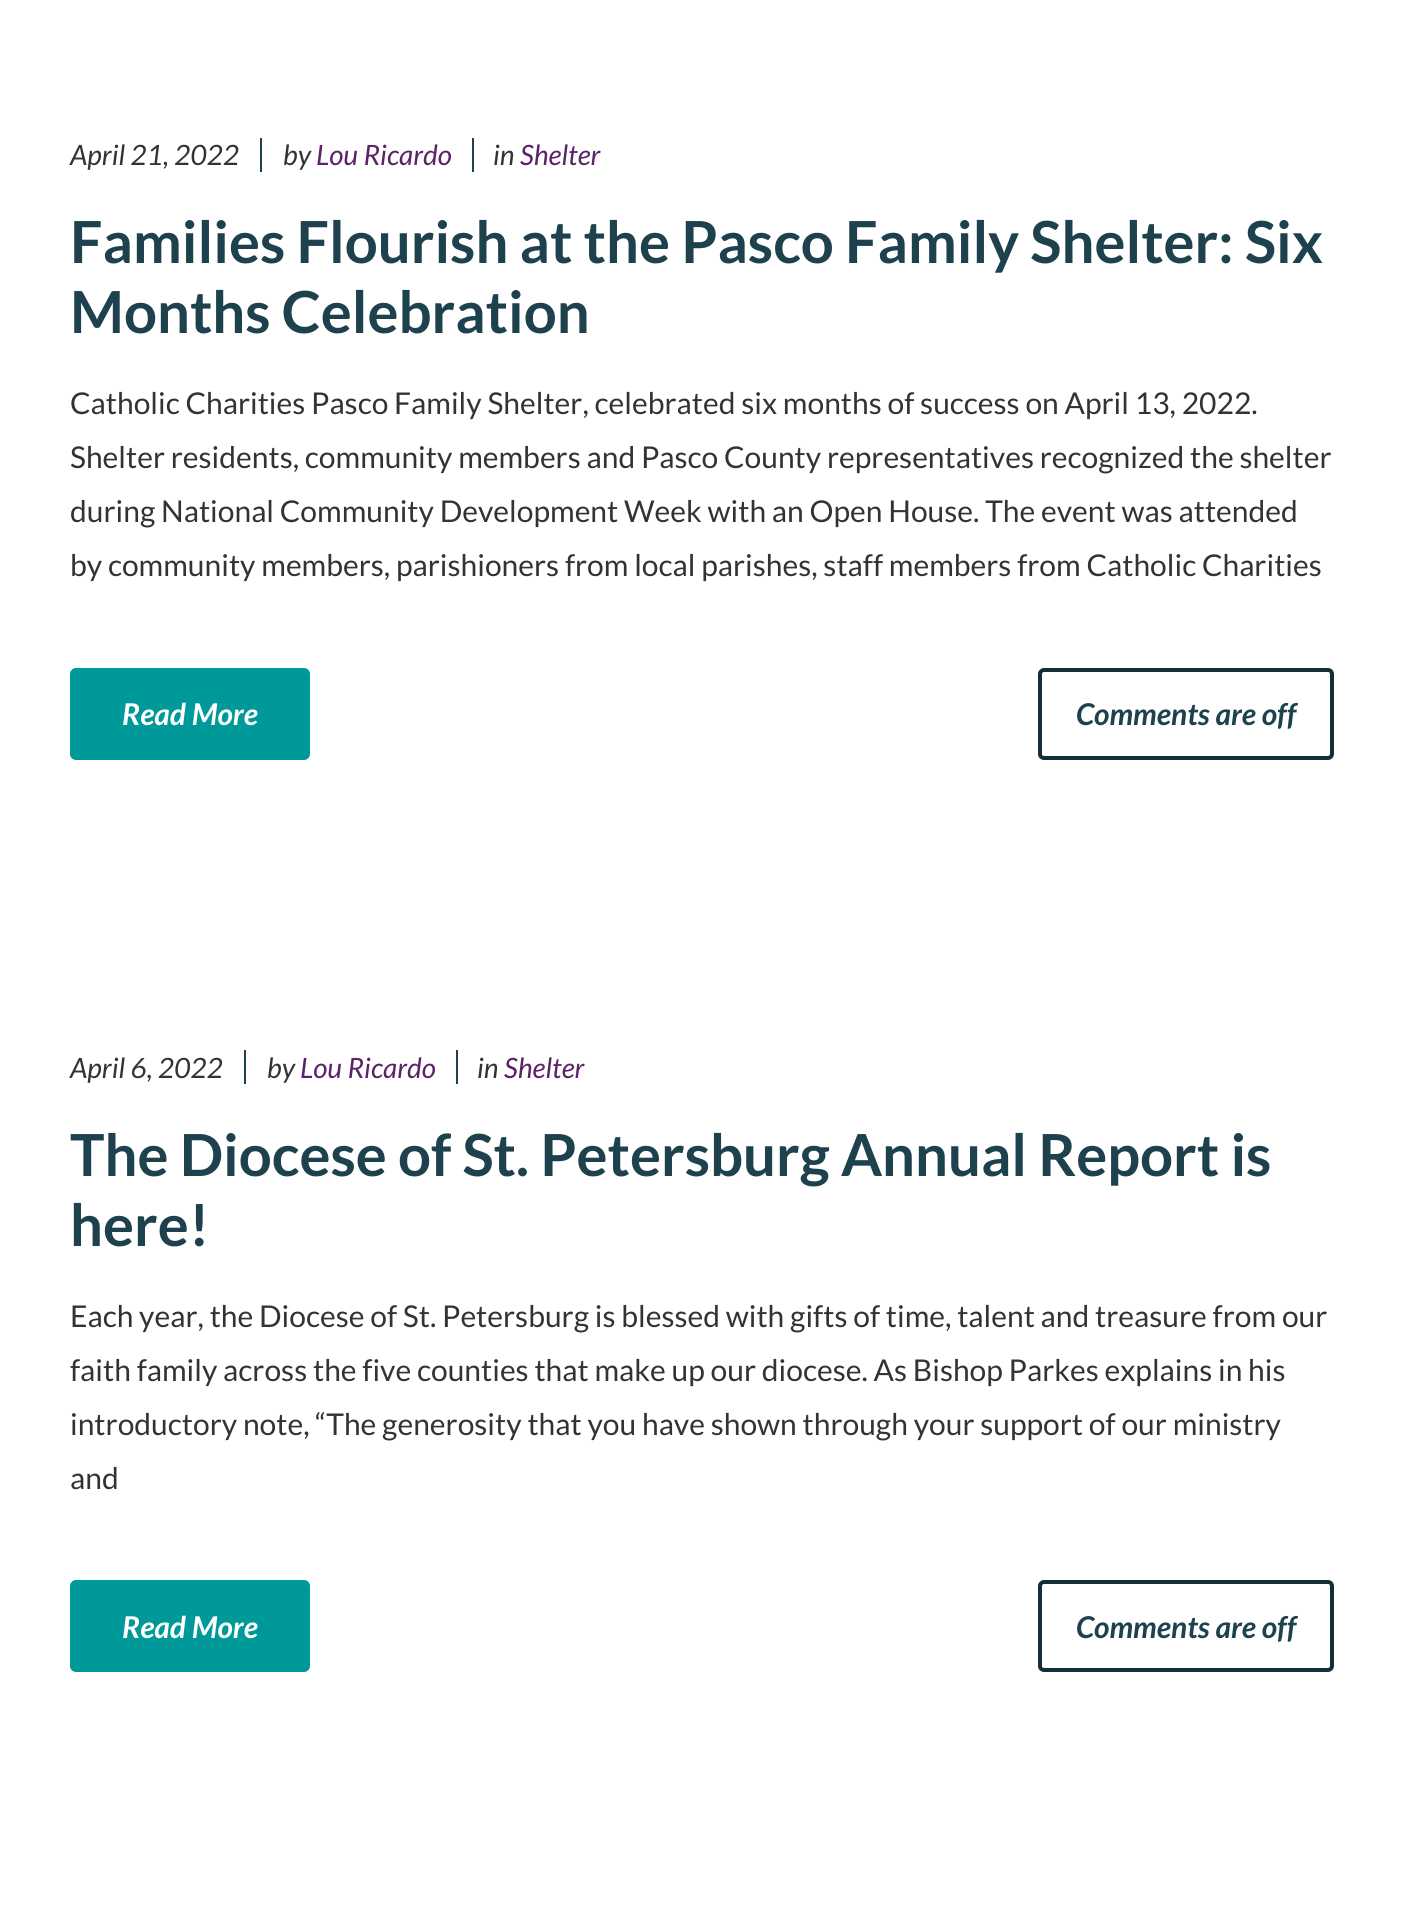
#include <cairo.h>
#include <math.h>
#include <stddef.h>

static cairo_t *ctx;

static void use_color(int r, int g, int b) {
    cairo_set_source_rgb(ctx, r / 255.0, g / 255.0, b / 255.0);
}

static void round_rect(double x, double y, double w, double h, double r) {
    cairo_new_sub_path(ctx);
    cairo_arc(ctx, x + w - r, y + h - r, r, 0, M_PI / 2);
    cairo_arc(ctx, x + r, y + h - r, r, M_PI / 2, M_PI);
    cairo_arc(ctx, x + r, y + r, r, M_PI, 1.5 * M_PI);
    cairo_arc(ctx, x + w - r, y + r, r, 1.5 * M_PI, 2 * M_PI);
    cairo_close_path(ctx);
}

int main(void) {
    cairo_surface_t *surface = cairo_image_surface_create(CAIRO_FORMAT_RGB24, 1403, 1928);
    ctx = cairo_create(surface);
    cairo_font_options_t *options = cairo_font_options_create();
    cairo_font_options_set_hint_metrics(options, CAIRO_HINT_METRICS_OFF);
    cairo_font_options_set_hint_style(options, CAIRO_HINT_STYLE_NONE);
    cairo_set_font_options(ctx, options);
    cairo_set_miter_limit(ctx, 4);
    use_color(255, 255, 255);
    cairo_paint(ctx);
    cairo_select_font_face(ctx, "Lato", CAIRO_FONT_SLANT_ITALIC, CAIRO_FONT_WEIGHT_NORMAL);
    cairo_set_font_size(ctx, 28);
    use_color(51, 51, 51);
    cairo_move_to(ctx, 70, 165);
    cairo_show_text(ctx, "April 21, 2022");
    cairo_move_to(ctx, 283, 165);
    cairo_show_text(ctx, "by");
    use_color(30, 65, 78);
    cairo_rectangle(ctx, 260, 138, 2, 34);
    cairo_fill(ctx);
    use_color(92, 35, 103);
    cairo_move_to(ctx, 316, 165);
    cairo_show_text(ctx, "Lou Ricardo");
    use_color(51, 51, 51);
    cairo_move_to(ctx, 493, 165);
    cairo_show_text(ctx, "in");
    use_color(30, 65, 78);
    cairo_rectangle(ctx, 472, 138, 2, 34);
    cairo_fill(ctx);
    use_color(92, 35, 103);
    cairo_move_to(ctx, 520, 165);
    cairo_show_text(ctx, "Shelter");
    cairo_select_font_face(ctx, "Lato", CAIRO_FONT_SLANT_NORMAL, CAIRO_FONT_WEIGHT_BOLD);
    cairo_set_font_size(ctx, 58);
    use_color(30, 65, 78);
    cairo_move_to(ctx, 70, 263);
    cairo_show_text(ctx, "Families Flourish at the Pasco Family Shelter: Six");
    cairo_move_to(ctx, 70, 333);
    cairo_show_text(ctx, "Months Celebration");
    cairo_select_font_face(ctx, "Lato", CAIRO_FONT_SLANT_NORMAL, CAIRO_FONT_WEIGHT_NORMAL);
    cairo_set_font_size(ctx, 30);
    use_color(51, 51, 51);
    cairo_move_to(ctx, 70, 414);
    cairo_show_text(ctx, "Catholic Charities Pasco Family Shelter, celebrated six months of success on April 13, 2022.");
    cairo_move_to(ctx, 70, 468);
    cairo_show_text(ctx, "Shelter residents, community members and Pasco County representatives recognized the shelter");
    cairo_move_to(ctx, 70, 522);
    cairo_show_text(ctx, "during National Community Development Week with an Open House. The event was attended");
    cairo_move_to(ctx, 70, 576);
    cairo_show_text(ctx, "by community members, parishioners from local parishes, staff members from Catholic Charities");
    use_color(0, 153, 153);
    round_rect(72, 670, 236, 88, 4);
    cairo_fill_preserve(ctx);
    cairo_set_line_width(ctx, 4);
    cairo_stroke(ctx);
    cairo_select_font_face(ctx, "Lato", CAIRO_FONT_SLANT_ITALIC, CAIRO_FONT_WEIGHT_BOLD);
    use_color(255, 255, 255);
    cairo_move_to(ctx, 122, 725);
    cairo_show_text(ctx, "Read More");
    round_rect(1040, 670, 292, 88, 4);
    use_color(20, 46, 57);
    cairo_stroke(ctx);
    use_color(30, 65, 78);
    cairo_move_to(ctx, 1076, 725);
    cairo_show_text(ctx, "Comments are off");
    cairo_select_font_face(ctx, "Lato", CAIRO_FONT_SLANT_ITALIC, CAIRO_FONT_WEIGHT_NORMAL);
    cairo_set_font_size(ctx, 28);
    use_color(51, 51, 51);
    cairo_move_to(ctx, 70, 1078);
    cairo_show_text(ctx, "April 6, 2022");
    cairo_move_to(ctx, 267, 1078);
    cairo_show_text(ctx, "by");
    use_color(30, 65, 78);
    cairo_rectangle(ctx, 244, 1050, 2, 34);
    cairo_fill(ctx);
    use_color(92, 35, 103);
    cairo_move_to(ctx, 300, 1078);
    cairo_show_text(ctx, "Lou Ricardo");
    use_color(51, 51, 51);
    cairo_move_to(ctx, 477, 1078);
    cairo_show_text(ctx, "in");
    use_color(30, 65, 78);
    cairo_rectangle(ctx, 456, 1050, 2, 34);
    cairo_fill(ctx);
    use_color(92, 35, 103);
    cairo_move_to(ctx, 504, 1078);
    cairo_show_text(ctx, "Shelter");
    cairo_select_font_face(ctx, "Lato", CAIRO_FONT_SLANT_NORMAL, CAIRO_FONT_WEIGHT_BOLD);
    cairo_set_font_size(ctx, 58);
    use_color(30, 65, 78);
    cairo_move_to(ctx, 70, 1176);
    cairo_show_text(ctx, "The Diocese of St. Petersburg Annual Report is");
    cairo_move_to(ctx, 70, 1246);
    cairo_show_text(ctx, "here!");
    cairo_select_font_face(ctx, "Lato", CAIRO_FONT_SLANT_NORMAL, CAIRO_FONT_WEIGHT_NORMAL);
    cairo_set_font_size(ctx, 30);
    use_color(51, 51, 51);
    cairo_move_to(ctx, 70, 1327);
    cairo_show_text(ctx, "Each year, the Diocese of St. Petersburg is blessed with gifts of time, talent and treasure from our");
    cairo_move_to(ctx, 70, 1381);
    cairo_show_text(ctx, "faith family across the five counties that make up our diocese. As Bishop Parkes explains in his");
    cairo_move_to(ctx, 70, 1435);
    cairo_show_text(ctx, "introductory note, “The generosity that you have shown through your support of our ministry");
    cairo_move_to(ctx, 70, 1489);
    cairo_show_text(ctx, "and");
    use_color(0, 153, 153);
    round_rect(72, 1582, 236, 88, 4);
    cairo_fill_preserve(ctx);
    cairo_stroke(ctx);
    cairo_select_font_face(ctx, "Lato", CAIRO_FONT_SLANT_ITALIC, CAIRO_FONT_WEIGHT_BOLD);
    use_color(255, 255, 255);
    cairo_move_to(ctx, 122, 1638);
    cairo_show_text(ctx, "Read More");
    round_rect(1040, 1582, 292, 88, 4);
    use_color(20, 46, 57);
    cairo_stroke(ctx);
    use_color(30, 65, 78);
    cairo_move_to(ctx, 1076, 1638);
    cairo_show_text(ctx, "Comments are off");
    cairo_surface_write_to_png(surface, "result.png");
    cairo_font_options_destroy(options);
    cairo_destroy(ctx);
    cairo_surface_destroy(surface);
    return 0;
}
